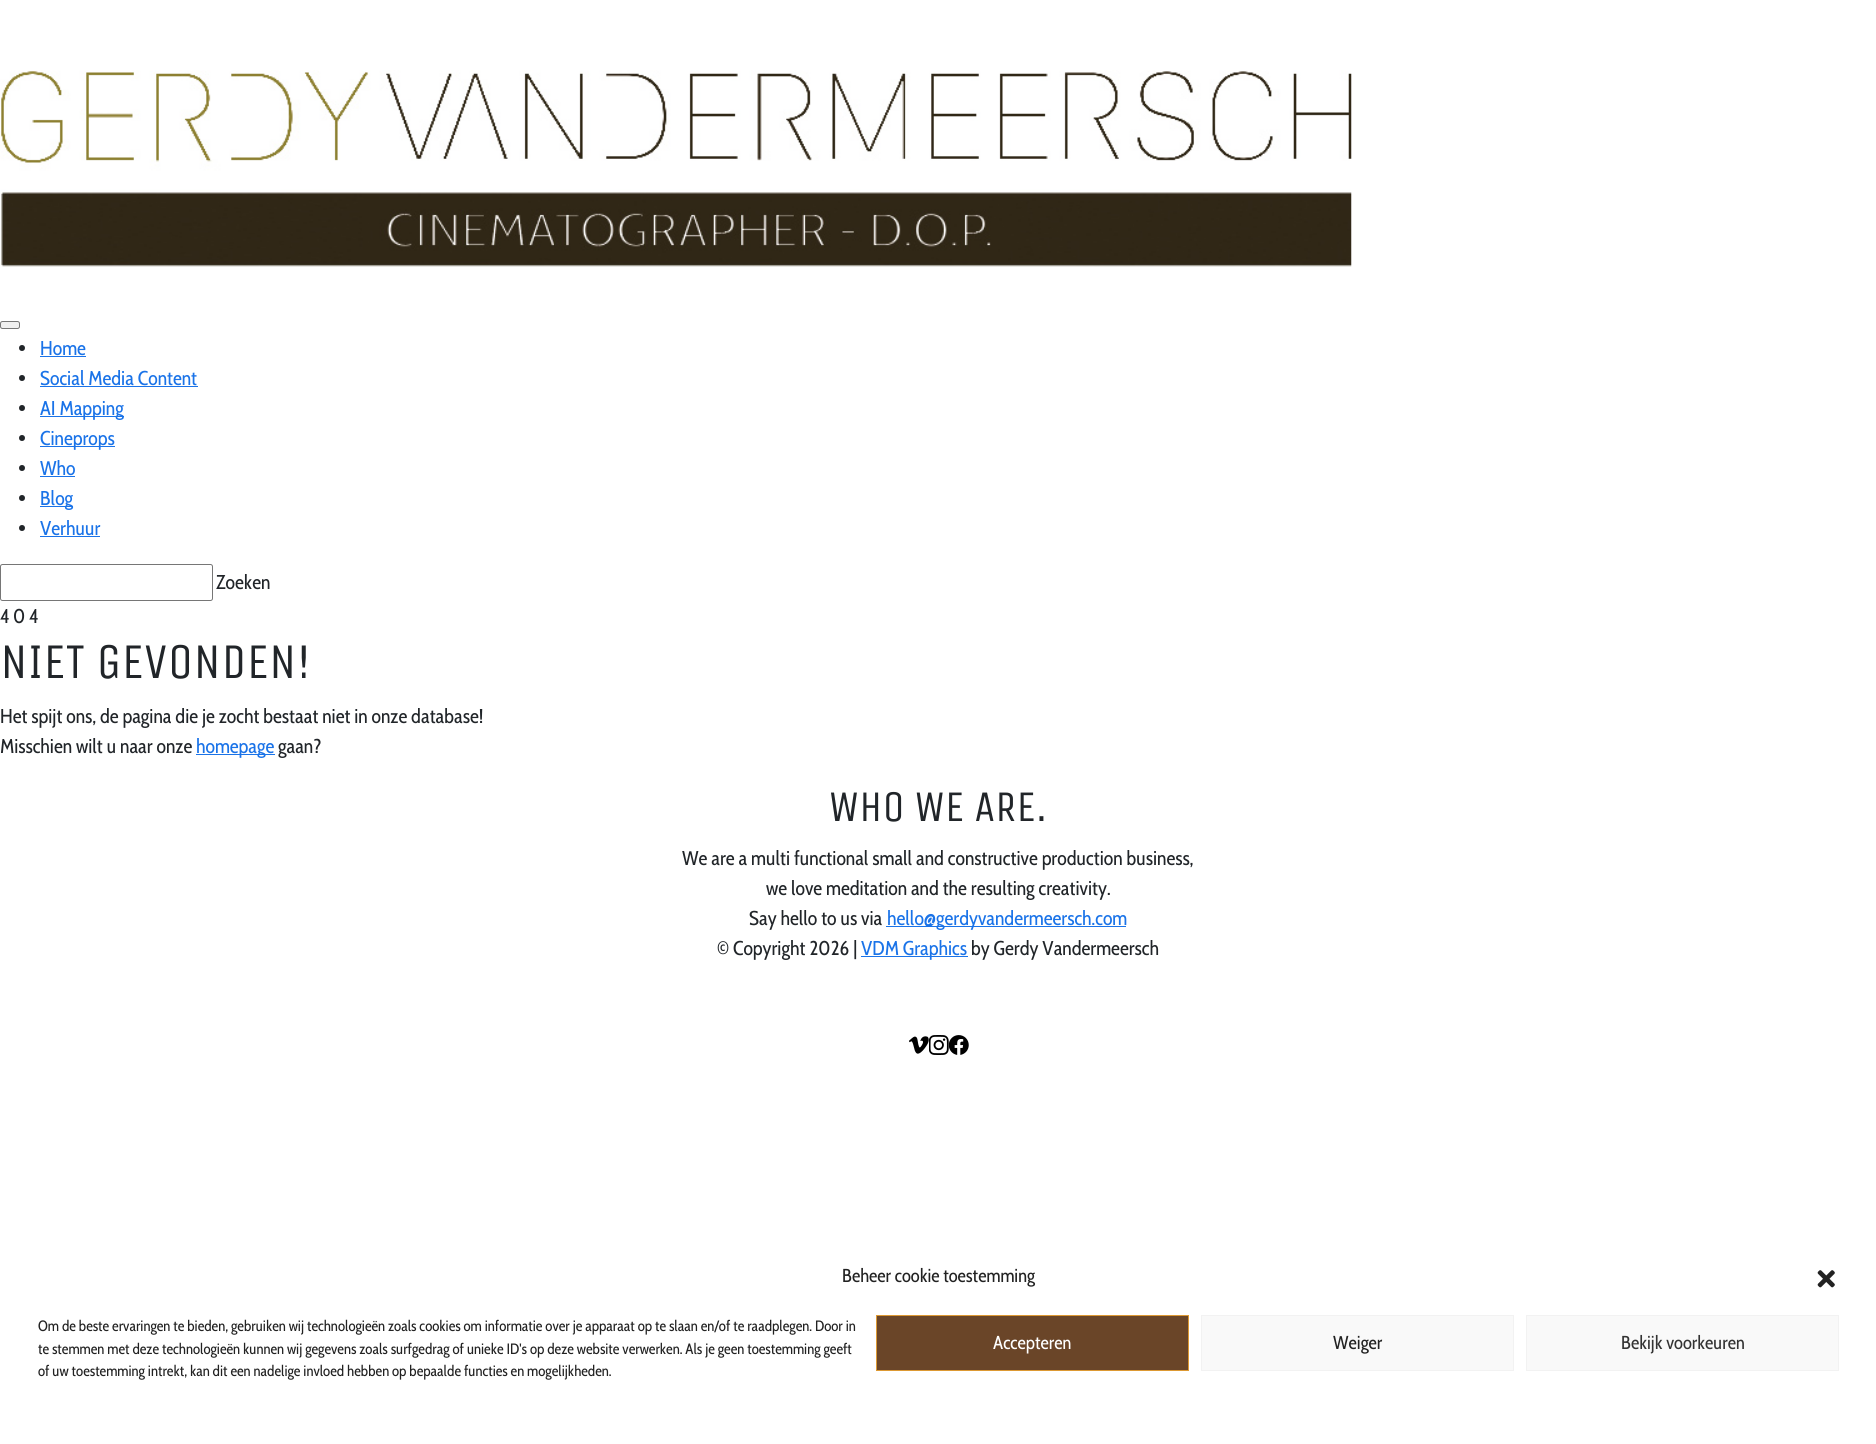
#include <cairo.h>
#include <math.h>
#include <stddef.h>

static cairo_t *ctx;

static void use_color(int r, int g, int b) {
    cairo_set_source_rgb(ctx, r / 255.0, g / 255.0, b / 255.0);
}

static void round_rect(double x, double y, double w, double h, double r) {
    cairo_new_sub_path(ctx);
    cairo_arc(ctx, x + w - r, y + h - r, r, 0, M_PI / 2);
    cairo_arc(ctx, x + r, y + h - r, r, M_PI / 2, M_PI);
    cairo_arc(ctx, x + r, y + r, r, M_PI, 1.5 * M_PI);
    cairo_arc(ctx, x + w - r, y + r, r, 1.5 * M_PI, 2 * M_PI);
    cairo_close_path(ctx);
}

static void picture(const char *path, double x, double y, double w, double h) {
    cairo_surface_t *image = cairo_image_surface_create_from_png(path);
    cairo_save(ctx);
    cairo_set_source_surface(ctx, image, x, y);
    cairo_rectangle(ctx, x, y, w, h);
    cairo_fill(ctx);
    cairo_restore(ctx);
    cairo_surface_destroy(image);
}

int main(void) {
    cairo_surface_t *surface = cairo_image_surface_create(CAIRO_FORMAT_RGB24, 1876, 1444);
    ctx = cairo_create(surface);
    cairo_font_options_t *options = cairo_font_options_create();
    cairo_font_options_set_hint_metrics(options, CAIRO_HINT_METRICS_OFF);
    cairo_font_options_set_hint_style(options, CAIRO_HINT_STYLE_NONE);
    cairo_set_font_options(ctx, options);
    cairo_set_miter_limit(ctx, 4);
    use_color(255, 255, 255);
    cairo_paint(ctx);
    picture("img1.png", 0, 70, 1352, 197);
    use_color(239, 239, 239);
    round_rect(0.5, 321.5, 19, 7, 2);
    cairo_fill_preserve(ctx);
    use_color(118, 118, 118);
    cairo_set_line_width(ctx, 1);
    cairo_stroke(ctx);
    use_color(33, 37, 41);
    cairo_arc(ctx, 22, 348, 3, 0, 2 * M_PI);
    cairo_fill(ctx);
    cairo_select_font_face(ctx, "Cabin Condensed", CAIRO_FONT_SLANT_NORMAL, CAIRO_FONT_WEIGHT_NORMAL);
    cairo_set_font_size(ctx, 20);
    use_color(26, 115, 232);
    cairo_move_to(ctx, 40, 355);
    cairo_show_text(ctx, "Home");
    cairo_rectangle(ctx, 40, 356, 46, 1);
    cairo_fill(ctx);
    use_color(33, 37, 41);
    cairo_arc(ctx, 22, 378, 3, 0, 2 * M_PI);
    cairo_fill(ctx);
    use_color(26, 115, 232);
    cairo_move_to(ctx, 40, 385);
    cairo_show_text(ctx, "Social Media Content");
    cairo_rectangle(ctx, 40, 386, 158, 1);
    cairo_fill(ctx);
    use_color(33, 37, 41);
    cairo_arc(ctx, 22, 408, 3, 0, 2 * M_PI);
    cairo_fill(ctx);
    use_color(26, 115, 232);
    cairo_rectangle(ctx, 40, 416, 84, 1);
    cairo_fill(ctx);
    cairo_move_to(ctx, 40, 415);
    cairo_show_text(ctx, "AI Mapping");
    use_color(33, 37, 41);
    cairo_new_path(ctx);
    cairo_arc(ctx, 22, 438, 3, 0, 2 * M_PI);
    cairo_fill(ctx);
    use_color(26, 115, 232);
    cairo_rectangle(ctx, 40, 446, 75, 1);
    cairo_fill(ctx);
    cairo_move_to(ctx, 40, 445);
    cairo_show_text(ctx, "Cineprops");
    use_color(33, 37, 41);
    cairo_new_path(ctx);
    cairo_arc(ctx, 22, 468, 3, 0, 2 * M_PI);
    cairo_fill(ctx);
    use_color(26, 115, 232);
    cairo_move_to(ctx, 40, 475);
    cairo_show_text(ctx, "Who");
    cairo_rectangle(ctx, 40, 476, 35, 1);
    cairo_fill(ctx);
    use_color(33, 37, 41);
    cairo_arc(ctx, 22, 498, 3, 0, 2 * M_PI);
    cairo_fill(ctx);
    use_color(26, 115, 232);
    cairo_rectangle(ctx, 40, 506, 33, 1);
    cairo_fill(ctx);
    cairo_move_to(ctx, 40, 505);
    cairo_show_text(ctx, "Blog");
    use_color(33, 37, 41);
    cairo_new_path(ctx);
    cairo_arc(ctx, 22, 528, 3, 0, 2 * M_PI);
    cairo_fill(ctx);
    use_color(26, 115, 232);
    cairo_move_to(ctx, 40, 535);
    cairo_show_text(ctx, "Verhuur");
    cairo_rectangle(ctx, 40, 536, 60, 1);
    cairo_fill(ctx);
    round_rect(0.5, 564.5, 212, 36, 2);
    use_color(118, 118, 118);
    cairo_stroke(ctx);
    use_color(33, 37, 41);
    cairo_move_to(ctx, 216, 589);
    cairo_show_text(ctx, "Zoeken");
    cairo_move_to(ctx, 0, 623);
    cairo_show_text(ctx, "4 0 4");
    cairo_select_font_face(ctx, "Unica One", CAIRO_FONT_SLANT_NORMAL, CAIRO_FONT_WEIGHT_NORMAL);
    cairo_set_font_size(ctx, 50);
    cairo_move_to(ctx, 0, 678);
    cairo_show_text(ctx, "NIET GEVONDEN!");
    cairo_select_font_face(ctx, "Cabin Condensed", CAIRO_FONT_SLANT_NORMAL, CAIRO_FONT_WEIGHT_NORMAL);
    cairo_set_font_size(ctx, 20);
    cairo_move_to(ctx, 0, 723);
    cairo_show_text(ctx, "Het spijt ons, de pagina die je zocht bestaat niet in onze database!");
    cairo_move_to(ctx, 0, 753);
    cairo_show_text(ctx, "Misschien wilt u naar onze");
    use_color(26, 115, 232);
    cairo_rectangle(ctx, 196, 754, 79, 1);
    cairo_fill(ctx);
    cairo_move_to(ctx, 196, 753);
    cairo_show_text(ctx, "homepage");
    use_color(33, 37, 41);
    cairo_move_to(ctx, 278, 753);
    cairo_show_text(ctx, "gaan?");
    cairo_select_font_face(ctx, "Unica One", CAIRO_FONT_SLANT_NORMAL, CAIRO_FONT_WEIGHT_NORMAL);
    cairo_set_font_size(ctx, 43.75);
    cairo_move_to(ctx, 829, 821);
    cairo_show_text(ctx, "WHO WE ARE.");
    cairo_select_font_face(ctx, "Cabin Condensed", CAIRO_FONT_SLANT_NORMAL, CAIRO_FONT_WEIGHT_NORMAL);
    cairo_set_font_size(ctx, 20);
    cairo_move_to(ctx, 682, 865);
    cairo_show_text(ctx, "We are a multi functional small and constructive production business,");
    cairo_move_to(ctx, 766, 895);
    cairo_show_text(ctx, "we love meditation and the resulting creativity.");
    cairo_move_to(ctx, 749, 925);
    cairo_show_text(ctx, "Say hello to us via");
    use_color(26, 115, 232);
    cairo_rectangle(ctx, 886, 926, 240, 1);
    cairo_fill(ctx);
    cairo_move_to(ctx, 887, 925);
    cairo_show_text(ctx, "hello@gerdyvandermeersch.com");
    use_color(33, 37, 41);
    cairo_move_to(ctx, 717, 955);
    cairo_show_text(ctx, "© Copyright 2026 |");
    use_color(26, 115, 232);
    cairo_rectangle(ctx, 861, 956, 107, 1);
    cairo_fill(ctx);
    cairo_move_to(ctx, 861, 955);
    cairo_show_text(ctx, "VDM Graphics");
    use_color(33, 37, 41);
    cairo_move_to(ctx, 971, 955);
    cairo_show_text(ctx, "by Gerdy Vandermeersch");
    picture("img2.png", 909, 1036, 20, 18);
    picture("img3.png", 929, 1035, 20, 20);
    picture("img4.png", 949, 1035, 20, 20);
    cairo_set_font_size(ctx, 18.75);
    use_color(34, 34, 34);
    cairo_move_to(ctx, 842, 1282);
    cairo_show_text(ctx, "Beheer cookie toestemming");
    picture("img5.png", 1817, 1270, 18, 18);
    cairo_set_font_size(ctx, 15);
    cairo_move_to(ctx, 38, 1331);
    cairo_show_text(ctx, "Om de beste ervaringen te bieden, gebruiken wij technologieën zoals cookies om informatie over je apparaat op te slaan en/of te raadplegen. Door in");
    cairo_move_to(ctx, 38, 1354);
    cairo_show_text(ctx, "te stemmen met deze technologieën kunnen wij gegevens zoals surfgedrag of unieke ID's op deze website verwerken. Als je geen toestemming geeft");
    cairo_move_to(ctx, 38, 1376);
    cairo_show_text(ctx, "of uw toestemming intrekt, kan dit een nadelige invloed hebben op bepaalde functies en mogelijkheden.");
    use_color(106, 69, 40);
    cairo_rectangle(ctx, 876.5, 1315.5, 312, 55);
    cairo_fill_preserve(ctx);
    use_color(221, 153, 51);
    cairo_stroke(ctx);
    cairo_set_font_size(ctx, 18.75);
    use_color(255, 255, 255);
    cairo_move_to(ctx, 993, 1349);
    cairo_show_text(ctx, "Accepteren");
    use_color(249, 249, 249);
    cairo_rectangle(ctx, 1201.5, 1315.5, 312, 55);
    cairo_fill_preserve(ctx);
    use_color(242, 242, 242);
    cairo_stroke(ctx);
    use_color(34, 34, 34);
    cairo_move_to(ctx, 1333, 1349);
    cairo_show_text(ctx, "Weiger");
    use_color(249, 249, 249);
    cairo_rectangle(ctx, 1526.5, 1315.5, 312, 55);
    cairo_fill_preserve(ctx);
    use_color(242, 242, 242);
    cairo_stroke(ctx);
    use_color(51, 51, 51);
    cairo_move_to(ctx, 1621, 1349);
    cairo_show_text(ctx, "Bekijk voorkeuren");
    cairo_surface_write_to_png(surface, "result.png");
    cairo_font_options_destroy(options);
    cairo_destroy(ctx);
    cairo_surface_destroy(surface);
    return 0;
}
